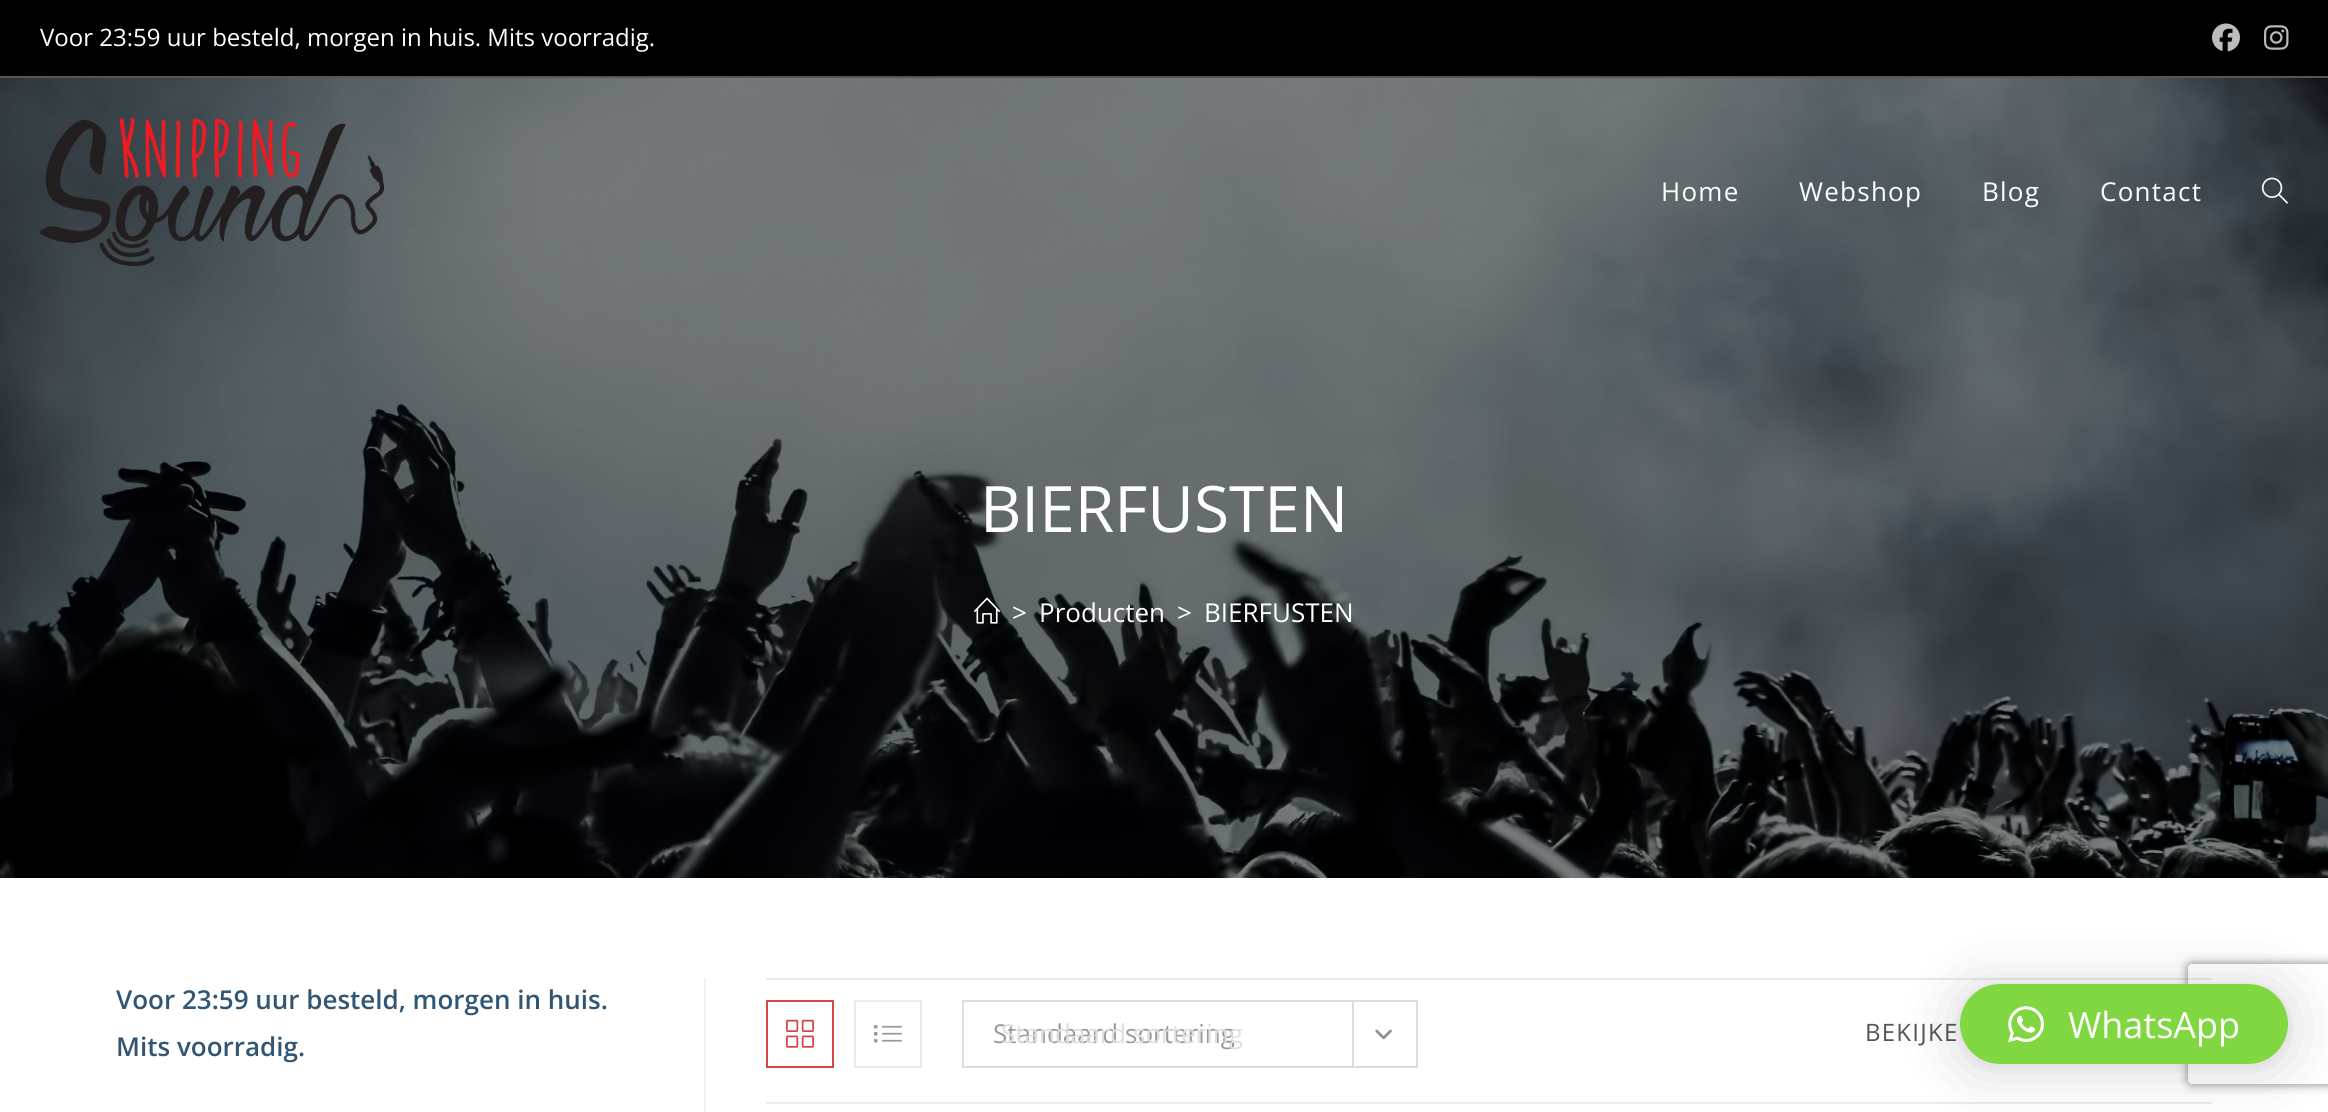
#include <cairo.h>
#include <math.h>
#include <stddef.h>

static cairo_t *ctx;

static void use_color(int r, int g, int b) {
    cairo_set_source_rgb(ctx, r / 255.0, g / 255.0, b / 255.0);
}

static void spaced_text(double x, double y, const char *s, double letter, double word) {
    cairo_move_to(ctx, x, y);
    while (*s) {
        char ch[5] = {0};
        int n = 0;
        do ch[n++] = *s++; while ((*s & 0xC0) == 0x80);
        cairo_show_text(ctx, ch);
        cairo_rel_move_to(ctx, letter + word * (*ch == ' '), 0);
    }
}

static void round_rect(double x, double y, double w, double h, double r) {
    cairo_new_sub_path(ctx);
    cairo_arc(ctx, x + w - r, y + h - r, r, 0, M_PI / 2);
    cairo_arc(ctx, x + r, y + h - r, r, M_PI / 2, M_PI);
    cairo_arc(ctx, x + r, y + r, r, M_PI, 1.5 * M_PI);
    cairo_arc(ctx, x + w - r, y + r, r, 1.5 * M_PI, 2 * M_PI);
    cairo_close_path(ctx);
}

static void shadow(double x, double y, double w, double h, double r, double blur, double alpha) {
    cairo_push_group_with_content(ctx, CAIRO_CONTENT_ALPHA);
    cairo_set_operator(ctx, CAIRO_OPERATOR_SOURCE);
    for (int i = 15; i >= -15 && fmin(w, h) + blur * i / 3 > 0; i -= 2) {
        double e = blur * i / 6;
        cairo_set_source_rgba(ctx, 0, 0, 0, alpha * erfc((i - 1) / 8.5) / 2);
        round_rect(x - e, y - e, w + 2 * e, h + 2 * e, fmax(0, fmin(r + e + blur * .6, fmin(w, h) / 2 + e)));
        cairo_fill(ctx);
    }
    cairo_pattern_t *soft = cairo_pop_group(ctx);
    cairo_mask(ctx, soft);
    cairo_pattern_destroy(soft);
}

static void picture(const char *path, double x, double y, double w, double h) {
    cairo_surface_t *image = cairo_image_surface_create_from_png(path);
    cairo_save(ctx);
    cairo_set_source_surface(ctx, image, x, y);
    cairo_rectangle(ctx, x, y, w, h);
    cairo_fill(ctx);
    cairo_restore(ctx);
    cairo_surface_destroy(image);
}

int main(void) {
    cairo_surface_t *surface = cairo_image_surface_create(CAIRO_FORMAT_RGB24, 2328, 1112);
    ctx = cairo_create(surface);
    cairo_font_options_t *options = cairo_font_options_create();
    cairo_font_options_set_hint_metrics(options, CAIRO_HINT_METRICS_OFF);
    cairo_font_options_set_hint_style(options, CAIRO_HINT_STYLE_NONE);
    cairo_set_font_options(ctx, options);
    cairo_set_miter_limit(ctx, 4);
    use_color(255, 255, 255);
    cairo_paint(ctx);
    use_color(0, 0, 0);
    cairo_rectangle(ctx, 0, 0, 2328, 76);
    cairo_fill(ctx);
    use_color(86, 86, 86);
    cairo_rectangle(ctx, 0, 76, 2328, 2);
    cairo_fill(ctx);
    cairo_select_font_face(ctx, "Open Sans", CAIRO_FONT_SLANT_NORMAL, CAIRO_FONT_WEIGHT_NORMAL);
    cairo_set_font_size(ctx, 24);
    use_color(255, 255, 255);
    cairo_move_to(ctx, 40, 46);
    cairo_show_text(ctx, "Voor 23:59 uur besteld, morgen in huis. Mits voorradig.");
    picture("img1.png", 2212, 23, 28, 29);
    picture("img2.png", 2264, 25, 25, 25);
    picture("img5.png", 0, 78, 2328, 800);
    picture("img3.png", 40, 118, 344, 148);
    cairo_set_font_size(ctx, 26);
    spaced_text(1661, 201, "Home", 1.25, 0);
    spaced_text(1799, 201, "Webshop", 1.25, 0);
    spaced_text(1982, 201, "Blog", 1.25, 0);
    spaced_text(2100, 201, "Contact", 1.25, 0);
    picture("img4.png", 2261, 177, 27, 27);
    cairo_set_font_size(ctx, 64);
    cairo_move_to(ctx, 980, 532);
    cairo_show_text(ctx, "BIERFUSTEN");
    picture("img6.png", 974, 597, 26, 27);
    cairo_set_font_size(ctx, 26);
    cairo_move_to(ctx, 1012, 622);
    cairo_show_text(ctx, ">");
    cairo_move_to(ctx, 1039, 622);
    cairo_show_text(ctx, "Producten");
    cairo_move_to(ctx, 1177, 622);
    cairo_show_text(ctx, ">");
    cairo_move_to(ctx, 1204, 622);
    cairo_show_text(ctx, "BIERFUSTEN");
    cairo_select_font_face(ctx, "Open Sans SemiBold", CAIRO_FONT_SLANT_NORMAL, CAIRO_FONT_WEIGHT_NORMAL);
    use_color(49, 86, 115);
    cairo_move_to(ctx, 116, 1009);
    cairo_show_text(ctx, "Voor 23:59 uur besteld, morgen in huis.");
    cairo_move_to(ctx, 116, 1056);
    cairo_show_text(ctx, "Mits voorradig.");
    use_color(241, 241, 241);
    cairo_rectangle(ctx, 704, 978, 2, 134);
    cairo_fill(ctx);
    use_color(234, 234, 234);
    cairo_rectangle(ctx, 766, 978, 1446, 2);
    cairo_fill(ctx);
    cairo_rectangle(ctx, 766, 1102, 1446, 2);
    cairo_fill(ctx);
    cairo_rectangle(ctx, 767, 1001, 66, 66);
    use_color(214, 68, 68);
    cairo_stroke(ctx);
    picture("img7.png", 786, 1019, 28, 29);
    cairo_rectangle(ctx, 855, 1001, 66, 66);
    use_color(234, 234, 234);
    cairo_stroke(ctx);
    picture("img8.png", 874, 1025, 28, 18);
    cairo_rectangle(ctx, 963, 1001, 454, 66);
    use_color(221, 221, 221);
    cairo_stroke(ctx);
    cairo_select_font_face(ctx, "Open Sans", CAIRO_FONT_SLANT_NORMAL, CAIRO_FONT_WEIGHT_NORMAL);
    use_color(153, 153, 153);
    cairo_move_to(ctx, 993, 1043);
    cairo_show_text(ctx, "Standaard sortering");
    use_color(221, 221, 221);
    cairo_rectangle(ctx, 1352, 1002, 2, 64);
    cairo_fill(ctx);
    picture("img9.png", 1375, 1029, 17, 11);
    use_color(223, 223, 223);
    cairo_move_to(ctx, 1001, 1043);
    cairo_show_text(ctx, "Standaard sortering");
    cairo_set_font_size(ctx, 24);
    use_color(85, 85, 85);
    spaced_text(1865, 1041, "BEKIJKE", 1.25, 0);
    cairo_save(ctx);
    cairo_set_fill_rule(ctx, CAIRO_FILL_RULE_EVEN_ODD);
    cairo_new_path(ctx);
    cairo_move_to(ctx, 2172, 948);
    cairo_line_to(ctx, 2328, 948);
    cairo_line_to(ctx, 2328, 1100);
    cairo_line_to(ctx, 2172, 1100);
    cairo_close_path(ctx);
    cairo_move_to(ctx, 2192, 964);
    cairo_line_to(ctx, 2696, 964);
    cairo_curve_to(ctx, 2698, 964, 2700, 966, 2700, 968);
    cairo_line_to(ctx, 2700, 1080);
    cairo_curve_to(ctx, 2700, 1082, 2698, 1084, 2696, 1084);
    cairo_line_to(ctx, 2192, 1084);
    cairo_curve_to(ctx, 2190, 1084, 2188, 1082, 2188, 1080);
    cairo_line_to(ctx, 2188, 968);
    cairo_curve_to(ctx, 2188, 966, 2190, 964, 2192, 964);
    cairo_close_path(ctx);
    cairo_clip(ctx);
    use_color(128, 128, 128);
    shadow(2188, 964, 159, 120, 4, 5, 1);
    cairo_restore(ctx);
    use_color(0, 0, 0);
    shadow(1960, 988, 328, 80, 40, 32, 0.16);
    shadow(1960, 986, 328, 80, 40, 6, 0.06);
    use_color(129, 215, 66);
    round_rect(1960, 984, 328, 80, 40);
    cairo_fill(ctx);
    picture("img10.png", 2008, 1006, 36, 37);
    cairo_set_font_size(ctx, 36);
    use_color(255, 255, 255);
    cairo_move_to(ctx, 2068, 1038);
    cairo_show_text(ctx, "WhatsApp");
    cairo_surface_write_to_png(surface, "result.png");
    cairo_font_options_destroy(options);
    cairo_destroy(ctx);
    cairo_surface_destroy(surface);
    return 0;
}
